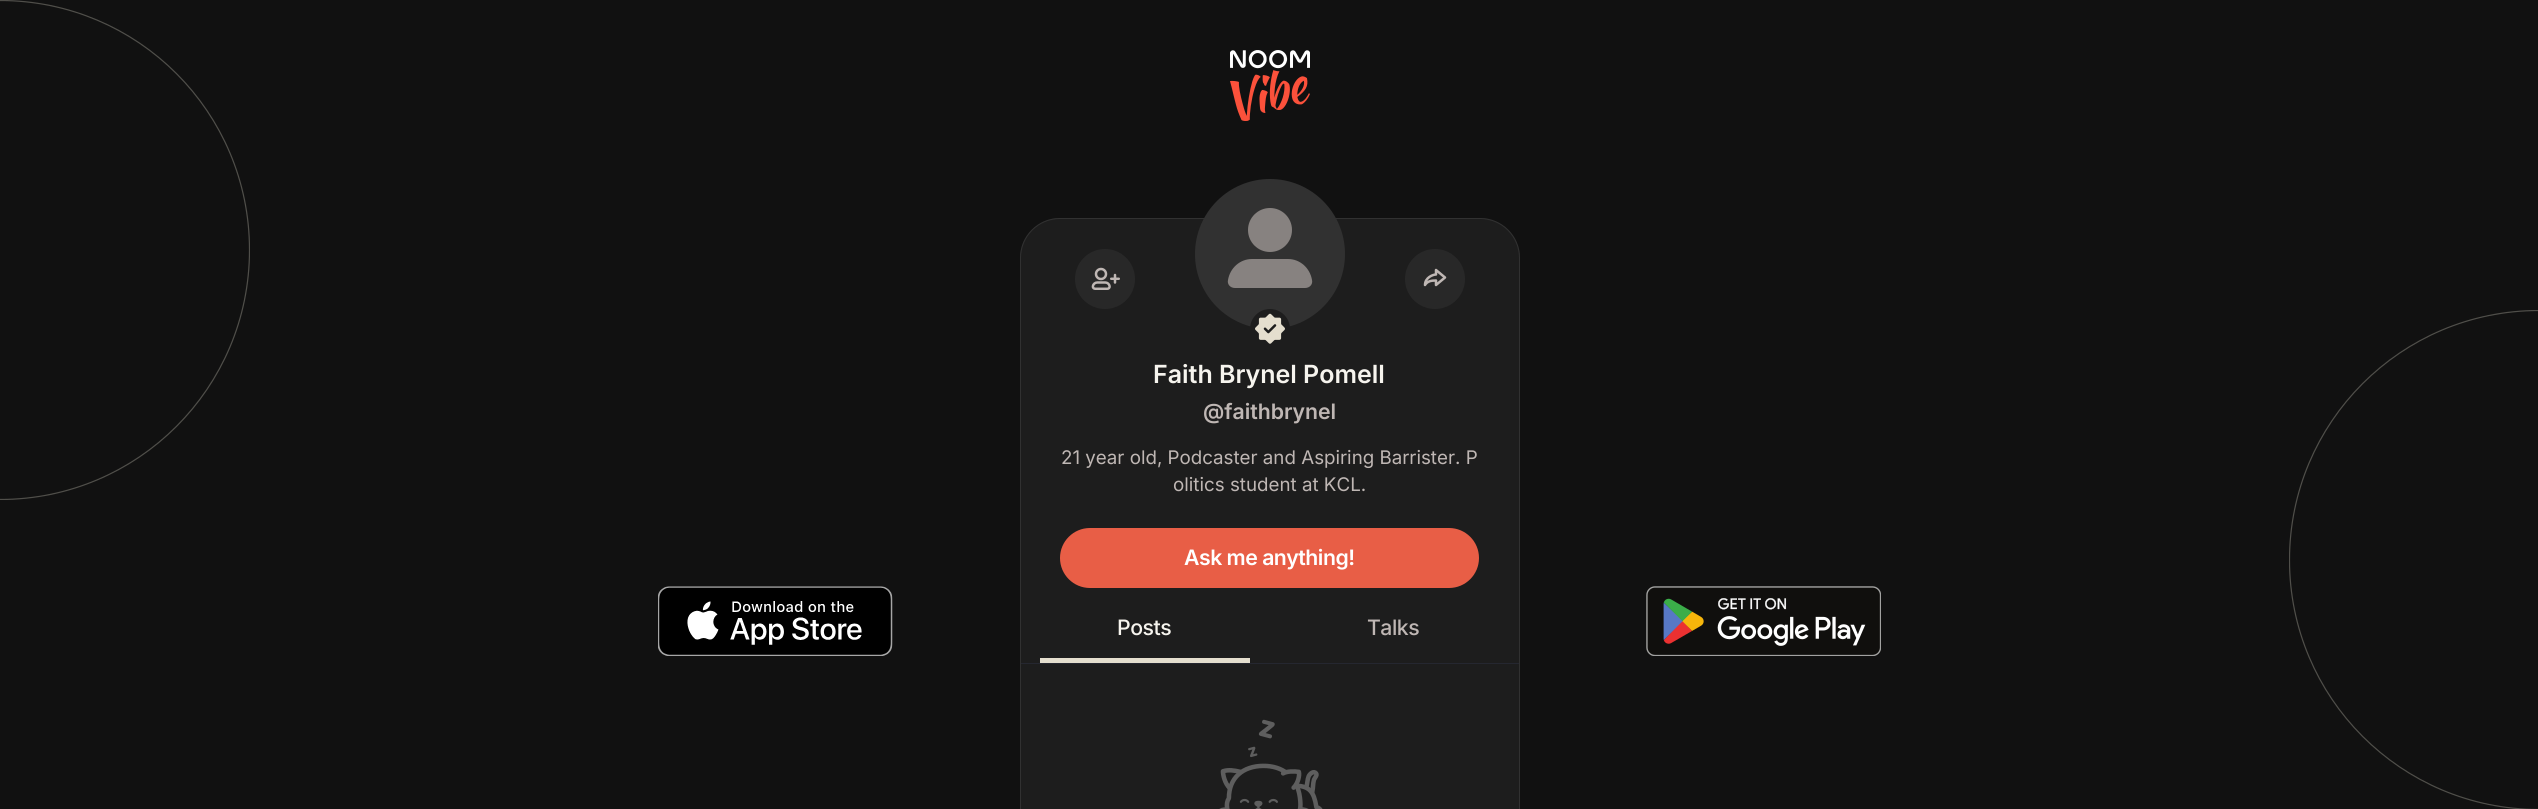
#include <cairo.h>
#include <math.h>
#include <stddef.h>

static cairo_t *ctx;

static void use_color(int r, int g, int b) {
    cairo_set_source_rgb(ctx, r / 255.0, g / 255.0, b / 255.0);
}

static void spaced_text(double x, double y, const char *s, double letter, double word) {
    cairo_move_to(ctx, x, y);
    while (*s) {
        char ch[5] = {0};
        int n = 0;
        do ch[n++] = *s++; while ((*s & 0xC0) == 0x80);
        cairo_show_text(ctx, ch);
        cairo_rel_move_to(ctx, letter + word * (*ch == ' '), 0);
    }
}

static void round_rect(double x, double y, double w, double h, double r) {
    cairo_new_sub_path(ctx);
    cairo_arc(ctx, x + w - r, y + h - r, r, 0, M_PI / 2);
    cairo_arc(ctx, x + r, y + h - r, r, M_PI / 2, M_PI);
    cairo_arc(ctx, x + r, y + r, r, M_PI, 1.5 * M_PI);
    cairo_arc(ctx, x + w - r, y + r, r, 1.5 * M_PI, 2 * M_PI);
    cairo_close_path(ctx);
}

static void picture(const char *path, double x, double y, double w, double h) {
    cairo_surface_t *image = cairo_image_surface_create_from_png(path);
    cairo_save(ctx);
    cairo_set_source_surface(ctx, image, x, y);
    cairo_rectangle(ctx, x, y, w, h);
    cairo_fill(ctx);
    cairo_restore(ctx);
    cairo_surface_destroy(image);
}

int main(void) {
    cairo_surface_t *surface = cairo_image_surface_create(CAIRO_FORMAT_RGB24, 2538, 809);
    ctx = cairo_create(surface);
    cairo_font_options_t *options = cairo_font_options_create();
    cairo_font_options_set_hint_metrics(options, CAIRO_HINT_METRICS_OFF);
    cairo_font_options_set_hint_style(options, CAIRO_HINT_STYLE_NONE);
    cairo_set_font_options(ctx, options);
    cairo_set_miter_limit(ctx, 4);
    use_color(17, 17, 17);
    cairo_paint(ctx);
    cairo_save(ctx);
    cairo_rectangle(ctx, 0, 0, 250, 500);
    cairo_clip(ctx);
    cairo_arc(ctx, 0, 250, 249.5, 0, 2 * M_PI);
    use_color(80, 79, 74);
    cairo_set_line_width(ctx, 1.2);
    cairo_stroke(ctx);
    cairo_restore(ctx);
    picture("img1.png", 1230, 50, 80, 71);
    picture("img2.png", 658, 586, 235, 70);
    use_color(29, 29, 29);
    cairo_new_path(ctx);
    cairo_move_to(ctx, 1060, 218);
    cairo_line_to(ctx, 1480, 218);
    cairo_curve_to(ctx, 1502, 218, 1520, 236, 1520, 258);
    cairo_line_to(ctx, 1520, 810);
    cairo_line_to(ctx, 1020, 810);
    cairo_line_to(ctx, 1020, 258);
    cairo_curve_to(ctx, 1020, 236, 1038, 218, 1060, 218);
    cairo_close_path(ctx);
    cairo_fill(ctx);
    round_rect(1020.5, 218.5, 499, 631, 39.5);
    use_color(49, 49, 49);
    cairo_set_line_width(ctx, 1);
    cairo_stroke(ctx);
    use_color(40, 40, 40);
    cairo_arc(ctx, 1105, 279, 30, 0, 2 * M_PI);
    cairo_fill(ctx);
    picture("img3.png", 1091, 267, 29, 23);
    use_color(49, 49, 49);
    cairo_arc(ctx, 1270, 254, 75, 0, 2 * M_PI);
    cairo_fill(ctx);
    use_color(135, 130, 128);
    cairo_arc(ctx, 1270, 230, 22, 0, 2 * M_PI);
    cairo_fill(ctx);
    cairo_new_path(ctx);
    cairo_move_to(ctx, 1228, 280);
    cairo_curve_to(ctx, 1230, 268, 1240, 259, 1252, 259);
    cairo_line_to(ctx, 1288, 259);
    cairo_curve_to(ctx, 1300, 259, 1310, 268, 1312, 280);
    cairo_curve_to(ctx, 1313, 284, 1310, 288, 1305, 288);
    cairo_line_to(ctx, 1235, 288);
    cairo_curve_to(ctx, 1230, 288, 1227, 284, 1228, 280);
    cairo_close_path(ctx);
    cairo_fill(ctx);
    picture("img4.png", 1250, 309, 40, 40);
    use_color(40, 40, 40);
    cairo_arc(ctx, 1435, 279, 30, 0, 2 * M_PI);
    cairo_fill(ctx);
    cairo_new_path(ctx);
    cairo_move_to(ctx, 1436, 280.5);
    cairo_line_to(ctx, 1436, 285);
    cairo_line_to(ctx, 1445, 277.5);
    cairo_line_to(ctx, 1436, 270);
    cairo_line_to(ctx, 1436, 274.5);
    cairo_curve_to(ctx, 1433, 274.5, 1425, 277.5, 1425, 285);
    cairo_curve_to(ctx, 1427.5, 281, 1431.5, 280.5, 1436, 280.5);
    cairo_close_path(ctx);
    use_color(191, 183, 180);
    cairo_set_line_width(ctx, 2.5);
    cairo_set_line_cap(ctx, CAIRO_LINE_CAP_ROUND);
    cairo_set_line_join(ctx, CAIRO_LINE_JOIN_ROUND);
    cairo_stroke(ctx);
    cairo_select_font_face(ctx, "Inter SemiBold", CAIRO_FONT_SLANT_NORMAL, CAIRO_FONT_WEIGHT_NORMAL);
    cairo_set_font_size(ctx, 25);
    use_color(246, 244, 238);
    cairo_move_to(ctx, 1153, 383);
    cairo_show_text(ctx, "Faith Brynel Pomell");
    cairo_set_font_size(ctx, 21.25);
    use_color(191, 183, 180);
    cairo_move_to(ctx, 1203, 419);
    cairo_show_text(ctx, "@faithbrynel");
    cairo_select_font_face(ctx, "Inter", CAIRO_FONT_SLANT_NORMAL, CAIRO_FONT_WEIGHT_NORMAL);
    cairo_set_font_size(ctx, 18.75);
    cairo_move_to(ctx, 1061, 464);
    cairo_show_text(ctx, "21 year old, Podcaster and Aspiring Barrister. P");
    cairo_move_to(ctx, 1173, 491);
    cairo_show_text(ctx, "olitics student at KCL.");
    use_color(232, 94, 70);
    round_rect(1060, 528, 419, 60, 30);
    cairo_fill(ctx);
    cairo_select_font_face(ctx, "Inter SemiBold", CAIRO_FONT_SLANT_NORMAL, CAIRO_FONT_WEIGHT_NORMAL);
    cairo_set_font_size(ctx, 21.25);
    use_color(255, 255, 255);
    spaced_text(1184, 565, "Ask me anything!", -0.5, 0);
    use_color(37, 39, 48);
    cairo_rectangle(ctx, 1021, 663, 498, 1);
    cairo_fill(ctx);
    use_color(228, 222, 206);
    cairo_rectangle(ctx, 1040, 658, 210, 5);
    cairo_fill(ctx);
    cairo_select_font_face(ctx, "Inter Medium", CAIRO_FONT_SLANT_NORMAL, CAIRO_FONT_WEIGHT_NORMAL);
    use_color(246, 244, 238);
    spaced_text(1117, 635, "Posts", -0.5, 0);
    use_color(191, 183, 180);
    spaced_text(1367, 635, "Talks", -0.5, 0);
    picture("img5.png", 1219, 719, 104, 90);
    picture("img6.png", 1646, 586, 235, 70);
    cairo_save(ctx);
    cairo_rectangle(ctx, 2289, 310, 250, 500);
    cairo_clip(ctx);
    cairo_new_path(ctx);
    cairo_move_to(ctx, 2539, 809.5);
    cairo_curve_to(ctx, 2401, 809.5, 2289.5, 697.5, 2289.5, 560);
    cairo_curve_to(ctx, 2289.5, 422.5, 2401, 310.5, 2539, 310.5);
    cairo_curve_to(ctx, 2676.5, 310.5, 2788, 422.5, 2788, 560);
    cairo_curve_to(ctx, 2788, 697.5, 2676.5, 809.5, 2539, 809.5);
    cairo_close_path(ctx);
    use_color(80, 79, 74);
    cairo_set_line_width(ctx, 1.2);
    cairo_set_line_cap(ctx, CAIRO_LINE_CAP_BUTT);
    cairo_set_line_join(ctx, CAIRO_LINE_JOIN_MITER);
    cairo_stroke(ctx);
    cairo_restore(ctx);
    cairo_surface_write_to_png(surface, "result.png");
    cairo_font_options_destroy(options);
    cairo_destroy(ctx);
    cairo_surface_destroy(surface);
    return 0;
}
